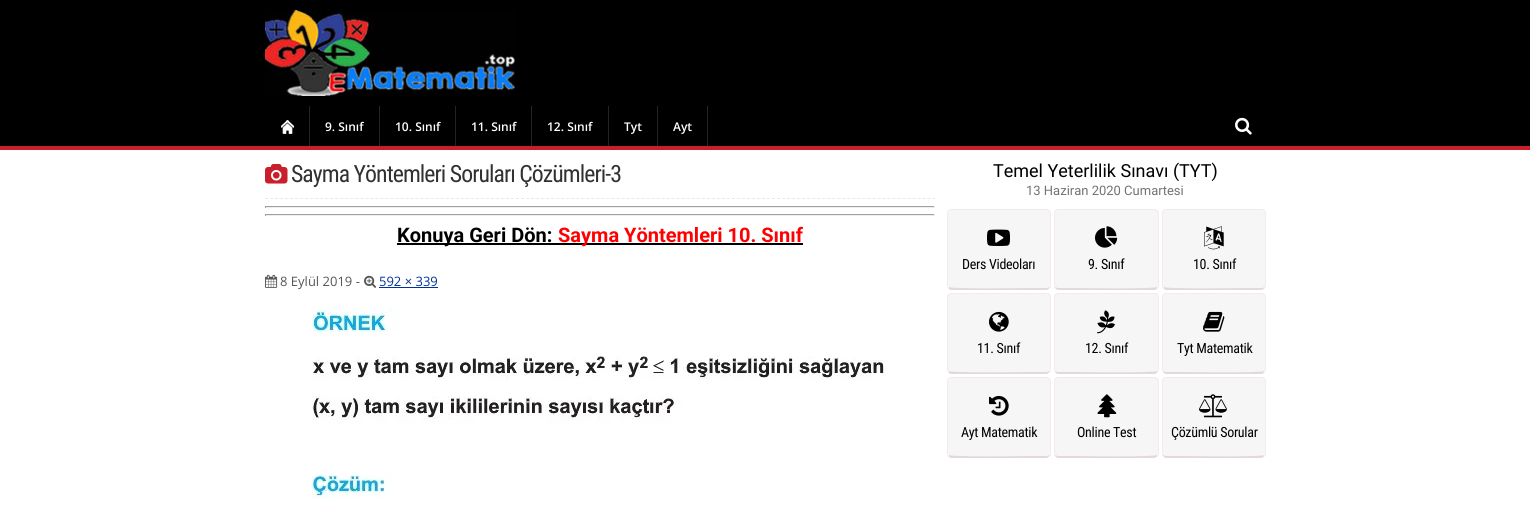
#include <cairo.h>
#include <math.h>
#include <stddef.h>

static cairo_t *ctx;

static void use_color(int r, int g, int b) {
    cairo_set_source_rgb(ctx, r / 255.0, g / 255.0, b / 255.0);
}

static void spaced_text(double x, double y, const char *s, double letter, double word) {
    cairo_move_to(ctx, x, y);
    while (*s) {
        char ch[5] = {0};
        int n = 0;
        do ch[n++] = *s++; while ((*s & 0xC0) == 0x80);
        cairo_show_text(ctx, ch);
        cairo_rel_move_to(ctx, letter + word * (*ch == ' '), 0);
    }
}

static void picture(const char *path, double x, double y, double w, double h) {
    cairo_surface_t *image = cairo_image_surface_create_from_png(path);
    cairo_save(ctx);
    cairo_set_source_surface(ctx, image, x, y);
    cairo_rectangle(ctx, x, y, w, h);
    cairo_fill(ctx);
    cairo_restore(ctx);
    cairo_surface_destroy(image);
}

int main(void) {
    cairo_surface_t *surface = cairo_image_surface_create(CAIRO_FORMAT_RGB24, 1530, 512);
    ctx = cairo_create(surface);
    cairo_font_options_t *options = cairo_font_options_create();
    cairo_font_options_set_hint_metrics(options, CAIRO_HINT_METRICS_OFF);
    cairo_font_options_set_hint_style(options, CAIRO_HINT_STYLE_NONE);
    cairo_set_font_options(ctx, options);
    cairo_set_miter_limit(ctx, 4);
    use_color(255, 255, 255);
    cairo_paint(ctx);
    use_color(0, 0, 0);
    cairo_rectangle(ctx, 0, 0, 1530, 146);
    cairo_fill(ctx);
    picture("img1.png", 265, 10, 250, 86);
    use_color(201, 31, 44);
    cairo_rectangle(ctx, 0, 146, 1530, 4);
    cairo_fill(ctx);
    use_color(35, 35, 35);
    cairo_rectangle(ctx, 309, 106, 1, 40);
    cairo_fill(ctx);
    picture("img2.png", 281, 120, 13, 14);
    cairo_rectangle(ctx, 379, 106, 1, 40);
    cairo_fill(ctx);
    cairo_select_font_face(ctx, "Open Sans SemiBold", CAIRO_FONT_SLANT_NORMAL, CAIRO_FONT_WEIGHT_NORMAL);
    cairo_set_font_size(ctx, 12);
    use_color(255, 255, 255);
    cairo_move_to(ctx, 325, 131);
    cairo_show_text(ctx, "9. Sınıf");
    use_color(35, 35, 35);
    cairo_rectangle(ctx, 455, 106, 1, 40);
    cairo_fill(ctx);
    use_color(255, 255, 255);
    cairo_move_to(ctx, 395, 131);
    cairo_show_text(ctx, "10. Sınıf");
    use_color(35, 35, 35);
    cairo_rectangle(ctx, 531, 106, 1, 40);
    cairo_fill(ctx);
    use_color(255, 255, 255);
    cairo_move_to(ctx, 471, 131);
    cairo_show_text(ctx, "11. Sınıf");
    use_color(35, 35, 35);
    cairo_rectangle(ctx, 608, 106, 1, 40);
    cairo_fill(ctx);
    use_color(255, 255, 255);
    cairo_move_to(ctx, 547, 131);
    cairo_show_text(ctx, "12. Sınıf");
    use_color(35, 35, 35);
    cairo_rectangle(ctx, 657, 106, 1, 40);
    cairo_fill(ctx);
    use_color(255, 255, 255);
    cairo_move_to(ctx, 624, 131);
    cairo_show_text(ctx, "Tyt");
    use_color(35, 35, 35);
    cairo_rectangle(ctx, 707, 106, 1, 40);
    cairo_fill(ctx);
    use_color(255, 255, 255);
    cairo_move_to(ctx, 673, 131);
    cairo_show_text(ctx, "Ayt");
    picture("img3.png", 1235, 117, 17, 18);
    cairo_new_path(ctx);
    cairo_move_to(ctx, 265, 198.5);
    cairo_line_to(ctx, 935, 198.5);
    use_color(234, 231, 231);
    cairo_set_line_width(ctx, 1);
    cairo_set_dash(ctx, (double[]){3, 2.02}, 2, 0);
    cairo_stroke(ctx);
    picture("img4.png", 265, 164, 23, 20);
    cairo_select_font_face(ctx, "Roboto Condensed", CAIRO_FONT_SLANT_NORMAL, CAIRO_FONT_WEIGHT_NORMAL);
    cairo_set_font_size(ctx, 23.75);
    use_color(49, 49, 49);
    spaced_text(291, 182, "Sayma Yöntemleri Soruları Çözümleri-3", -0.95, 0);
    use_color(159, 159, 159);
    cairo_rectangle(ctx, 265, 206, 670, 1);
    cairo_fill(ctx);
    use_color(238, 238, 238);
    cairo_rectangle(ctx, 934, 206, 1, 2);
    cairo_fill(ctx);
    cairo_rectangle(ctx, 265, 207, 670, 1);
    cairo_fill(ctx);
    use_color(159, 159, 159);
    cairo_rectangle(ctx, 265, 206, 1, 2);
    cairo_fill(ctx);
    cairo_rectangle(ctx, 265, 214, 670, 1);
    cairo_fill(ctx);
    use_color(238, 238, 238);
    cairo_rectangle(ctx, 934, 214, 1, 2);
    cairo_fill(ctx);
    cairo_rectangle(ctx, 265, 215, 670, 1);
    cairo_fill(ctx);
    use_color(159, 159, 159);
    cairo_rectangle(ctx, 265, 214, 1, 2);
    cairo_fill(ctx);
    use_color(0, 0, 0);
    cairo_rectangle(ctx, 397, 243, 406, 2);
    cairo_fill(ctx);
    cairo_select_font_face(ctx, "Roboto", CAIRO_FONT_SLANT_NORMAL, CAIRO_FONT_WEIGHT_BOLD);
    cairo_set_font_size(ctx, 20);
    cairo_move_to(ctx, 397, 242);
    cairo_show_text(ctx, "Konuya Geri Dön:");
    use_color(255, 0, 0);
    cairo_move_to(ctx, 558, 242);
    cairo_show_text(ctx, "Sayma Yöntemleri 10. Sınıf");
    picture("img5.png", 265, 274, 13, 14);
    cairo_select_font_face(ctx, "Open Sans", CAIRO_FONT_SLANT_NORMAL, CAIRO_FONT_WEIGHT_NORMAL);
    cairo_set_font_size(ctx, 13);
    use_color(86, 86, 86);
    cairo_move_to(ctx, 280, 286);
    cairo_show_text(ctx, "8 Eylül 2019 -");
    picture("img6.png", 364, 275, 12, 13);
    use_color(0, 51, 153);
    cairo_move_to(ctx, 379, 286);
    cairo_show_text(ctx, "592 × 339");
    cairo_rectangle(ctx, 379, 287, 59, 1);
    cairo_fill(ctx);
    picture("img7.png", 311, 306, 573, 194);
    cairo_select_font_face(ctx, "Roboto", CAIRO_FONT_SLANT_NORMAL, CAIRO_FONT_WEIGHT_NORMAL);
    cairo_set_font_size(ctx, 18);
    use_color(0, 0, 0);
    cairo_move_to(ctx, 993, 177);
    cairo_show_text(ctx, "Temel Yeterlilik Sınavı (TYT)");
    cairo_set_font_size(ctx, 13);
    use_color(119, 113, 113);
    cairo_move_to(ctx, 1026, 195);
    cairo_show_text(ctx, "13 Haziran 2020 Cumartesi");
    use_color(246, 246, 246);
    cairo_new_path(ctx);
    cairo_move_to(ctx, 951, 210);
    cairo_line_to(ctx, 1047, 210);
    cairo_curve_to(ctx, 1049, 210, 1050, 211, 1050, 213);
    cairo_line_to(ctx, 1050, 286);
    cairo_curve_to(ctx, 1050, 287, 1049, 288, 1047, 288);
    cairo_line_to(ctx, 951, 288);
    cairo_curve_to(ctx, 949, 288, 948, 287, 948, 286);
    cairo_line_to(ctx, 948, 213);
    cairo_curve_to(ctx, 948, 211, 949, 210, 951, 210);
    cairo_close_path(ctx);
    cairo_fill(ctx);
    use_color(241, 235, 235);
    cairo_new_path(ctx);
    cairo_move_to(ctx, 951, 209);
    cairo_line_to(ctx, 948, 210);
    cairo_line_to(ctx, 949, 211);
    cairo_line_to(ctx, 951, 210);
    cairo_line_to(ctx, 1047, 210);
    cairo_line_to(ctx, 1049, 211);
    cairo_line_to(ctx, 1050, 210);
    cairo_line_to(ctx, 1047, 209);
    cairo_close_path(ctx);
    cairo_fill(ctx);
    cairo_new_path(ctx);
    cairo_move_to(ctx, 1051, 286);
    cairo_line_to(ctx, 1051, 213);
    cairo_line_to(ctx, 1050, 210);
    cairo_line_to(ctx, 1049, 211);
    cairo_line_to(ctx, 1050, 213);
    cairo_line_to(ctx, 1050, 287);
    cairo_line_to(ctx, 1050, 288);
    cairo_close_path(ctx);
    cairo_fill(ctx);
    use_color(226, 218, 218);
    cairo_new_path(ctx);
    cairo_move_to(ctx, 951, 290);
    cairo_line_to(ctx, 1047, 290);
    cairo_line_to(ctx, 1050, 288);
    cairo_line_to(ctx, 1050, 287);
    cairo_line_to(ctx, 1047, 288);
    cairo_line_to(ctx, 1031, 288);
    cairo_curve_to(ctx, 1022, 288, 951, 289, 949, 287);
    cairo_line_to(ctx, 948, 288);
    cairo_curve_to(ctx, 949, 289, 950, 290, 951, 290);
    cairo_close_path(ctx);
    cairo_fill(ctx);
    use_color(241, 235, 235);
    cairo_new_path(ctx);
    cairo_move_to(ctx, 947, 213);
    cairo_line_to(ctx, 947, 286);
    cairo_line_to(ctx, 948, 288);
    cairo_line_to(ctx, 948, 287);
    cairo_line_to(ctx, 948, 213);
    cairo_line_to(ctx, 949, 211);
    cairo_line_to(ctx, 948, 210);
    cairo_close_path(ctx);
    cairo_fill(ctx);
    picture("img8.png", 987, 229, 23, 17);
    cairo_select_font_face(ctx, "Roboto Condensed", CAIRO_FONT_SLANT_NORMAL, CAIRO_FONT_WEIGHT_NORMAL);
    cairo_set_font_size(ctx, 14);
    use_color(0, 0, 0);
    spaced_text(962, 269, "Ders Videoları", -0.3, 0);
    use_color(246, 246, 246);
    cairo_new_path(ctx);
    cairo_move_to(ctx, 1058, 210);
    cairo_line_to(ctx, 1155, 210);
    cairo_curve_to(ctx, 1157, 210, 1158, 211, 1158, 213);
    cairo_line_to(ctx, 1158, 286);
    cairo_curve_to(ctx, 1158, 287, 1157, 288, 1155, 288);
    cairo_line_to(ctx, 1058, 288);
    cairo_curve_to(ctx, 1056, 288, 1055, 287, 1055, 286);
    cairo_line_to(ctx, 1055, 213);
    cairo_curve_to(ctx, 1055, 211, 1056, 210, 1058, 210);
    cairo_close_path(ctx);
    cairo_fill(ctx);
    use_color(241, 235, 235);
    cairo_new_path(ctx);
    cairo_move_to(ctx, 1058, 209);
    cairo_line_to(ctx, 1055, 210);
    cairo_line_to(ctx, 1056, 211);
    cairo_line_to(ctx, 1058, 210);
    cairo_line_to(ctx, 1155, 210);
    cairo_line_to(ctx, 1157, 211);
    cairo_line_to(ctx, 1158, 210);
    cairo_line_to(ctx, 1155, 209);
    cairo_close_path(ctx);
    cairo_fill(ctx);
    cairo_new_path(ctx);
    cairo_move_to(ctx, 1159, 286);
    cairo_line_to(ctx, 1159, 213);
    cairo_line_to(ctx, 1158, 210);
    cairo_line_to(ctx, 1157, 211);
    cairo_line_to(ctx, 1158, 213);
    cairo_line_to(ctx, 1158, 287);
    cairo_line_to(ctx, 1158, 288);
    cairo_close_path(ctx);
    cairo_fill(ctx);
    use_color(226, 218, 218);
    cairo_new_path(ctx);
    cairo_move_to(ctx, 1058, 290);
    cairo_line_to(ctx, 1155, 290);
    cairo_line_to(ctx, 1158, 288);
    cairo_line_to(ctx, 1157, 287);
    cairo_curve_to(ctx, 1155, 289, 1083, 288, 1074, 288);
    cairo_line_to(ctx, 1058, 288);
    cairo_line_to(ctx, 1055, 287);
    cairo_line_to(ctx, 1055, 288);
    cairo_curve_to(ctx, 1056, 289, 1057, 290, 1058, 290);
    cairo_close_path(ctx);
    cairo_fill(ctx);
    use_color(241, 235, 235);
    cairo_new_path(ctx);
    cairo_move_to(ctx, 1054, 213);
    cairo_line_to(ctx, 1054, 286);
    cairo_line_to(ctx, 1055, 288);
    cairo_line_to(ctx, 1055, 287);
    cairo_line_to(ctx, 1055, 213);
    cairo_line_to(ctx, 1056, 211);
    cairo_line_to(ctx, 1055, 210);
    cairo_close_path(ctx);
    cairo_fill(ctx);
    picture("img9.png", 1095, 226, 23, 22);
    use_color(0, 0, 0);
    spaced_text(1088, 269, "9. Sınıf", -0.3, 0);
    use_color(246, 246, 246);
    cairo_new_path(ctx);
    cairo_move_to(ctx, 1166, 210);
    cairo_line_to(ctx, 1262, 210);
    cairo_curve_to(ctx, 1264, 210, 1265, 211, 1265, 213);
    cairo_line_to(ctx, 1265, 286);
    cairo_curve_to(ctx, 1265, 287, 1264, 288, 1262, 288);
    cairo_line_to(ctx, 1166, 288);
    cairo_curve_to(ctx, 1164, 288, 1163, 287, 1163, 286);
    cairo_line_to(ctx, 1163, 213);
    cairo_curve_to(ctx, 1163, 211, 1164, 210, 1166, 210);
    cairo_close_path(ctx);
    cairo_fill(ctx);
    use_color(241, 235, 235);
    cairo_new_path(ctx);
    cairo_move_to(ctx, 1166, 209);
    cairo_line_to(ctx, 1163, 210);
    cairo_line_to(ctx, 1164, 211);
    cairo_line_to(ctx, 1166, 210);
    cairo_line_to(ctx, 1262, 210);
    cairo_line_to(ctx, 1264, 211);
    cairo_line_to(ctx, 1265, 210);
    cairo_line_to(ctx, 1262, 209);
    cairo_close_path(ctx);
    cairo_fill(ctx);
    cairo_new_path(ctx);
    cairo_move_to(ctx, 1266, 286);
    cairo_line_to(ctx, 1266, 213);
    cairo_line_to(ctx, 1265, 210);
    cairo_line_to(ctx, 1264, 211);
    cairo_line_to(ctx, 1265, 213);
    cairo_line_to(ctx, 1265, 287);
    cairo_line_to(ctx, 1265, 288);
    cairo_close_path(ctx);
    cairo_fill(ctx);
    use_color(226, 218, 218);
    cairo_new_path(ctx);
    cairo_move_to(ctx, 1166, 290);
    cairo_line_to(ctx, 1262, 290);
    cairo_line_to(ctx, 1265, 288);
    cairo_line_to(ctx, 1265, 287);
    cairo_line_to(ctx, 1262, 288);
    cairo_line_to(ctx, 1246, 288);
    cairo_curve_to(ctx, 1237, 288, 1166, 289, 1164, 287);
    cairo_line_to(ctx, 1163, 288);
    cairo_curve_to(ctx, 1164, 289, 1165, 290, 1166, 290);
    cairo_close_path(ctx);
    cairo_fill(ctx);
    use_color(241, 235, 235);
    cairo_new_path(ctx);
    cairo_move_to(ctx, 1162, 213);
    cairo_line_to(ctx, 1162, 286);
    cairo_line_to(ctx, 1163, 288);
    cairo_line_to(ctx, 1163, 287);
    cairo_line_to(ctx, 1163, 213);
    cairo_line_to(ctx, 1164, 211);
    cairo_line_to(ctx, 1163, 210);
    cairo_close_path(ctx);
    cairo_fill(ctx);
    picture("img10.png", 1204, 226, 20, 24);
    use_color(0, 0, 0);
    spaced_text(1193, 269, "10. Sınıf", -0.3, 0);
    use_color(246, 246, 246);
    cairo_new_path(ctx);
    cairo_move_to(ctx, 951, 294);
    cairo_line_to(ctx, 1047, 294);
    cairo_curve_to(ctx, 1049, 294, 1050, 295, 1050, 297);
    cairo_line_to(ctx, 1050, 370);
    cairo_curve_to(ctx, 1050, 371, 1049, 372, 1047, 372);
    cairo_line_to(ctx, 951, 372);
    cairo_curve_to(ctx, 949, 372, 948, 371, 948, 370);
    cairo_line_to(ctx, 948, 297);
    cairo_curve_to(ctx, 948, 295, 949, 294, 951, 294);
    cairo_close_path(ctx);
    cairo_fill(ctx);
    use_color(241, 235, 235);
    cairo_new_path(ctx);
    cairo_move_to(ctx, 951, 293);
    cairo_line_to(ctx, 948, 294);
    cairo_line_to(ctx, 949, 295);
    cairo_line_to(ctx, 951, 294);
    cairo_line_to(ctx, 1047, 294);
    cairo_line_to(ctx, 1049, 295);
    cairo_line_to(ctx, 1050, 294);
    cairo_line_to(ctx, 1047, 293);
    cairo_close_path(ctx);
    cairo_fill(ctx);
    cairo_new_path(ctx);
    cairo_move_to(ctx, 1051, 370);
    cairo_line_to(ctx, 1051, 297);
    cairo_line_to(ctx, 1050, 294);
    cairo_line_to(ctx, 1049, 295);
    cairo_line_to(ctx, 1050, 297);
    cairo_line_to(ctx, 1050, 371);
    cairo_line_to(ctx, 1050, 372);
    cairo_close_path(ctx);
    cairo_fill(ctx);
    use_color(226, 218, 218);
    cairo_new_path(ctx);
    cairo_move_to(ctx, 951, 374);
    cairo_line_to(ctx, 1047, 374);
    cairo_line_to(ctx, 1050, 372);
    cairo_line_to(ctx, 1050, 371);
    cairo_line_to(ctx, 1047, 372);
    cairo_line_to(ctx, 1031, 372);
    cairo_curve_to(ctx, 1022, 372, 951, 373, 949, 371);
    cairo_line_to(ctx, 948, 372);
    cairo_curve_to(ctx, 949, 373, 950, 374, 951, 374);
    cairo_close_path(ctx);
    cairo_fill(ctx);
    use_color(241, 235, 235);
    cairo_new_path(ctx);
    cairo_move_to(ctx, 947, 297);
    cairo_line_to(ctx, 947, 370);
    cairo_line_to(ctx, 948, 372);
    cairo_line_to(ctx, 948, 371);
    cairo_line_to(ctx, 948, 297);
    cairo_line_to(ctx, 949, 295);
    cairo_line_to(ctx, 948, 294);
    cairo_close_path(ctx);
    cairo_fill(ctx);
    picture("img11.png", 989, 311, 20, 21);
    use_color(0, 0, 0);
    spaced_text(977, 353, "11. Sınıf", -0.3, 0);
    use_color(246, 246, 246);
    cairo_new_path(ctx);
    cairo_move_to(ctx, 1058, 294);
    cairo_line_to(ctx, 1155, 294);
    cairo_curve_to(ctx, 1157, 294, 1158, 295, 1158, 297);
    cairo_line_to(ctx, 1158, 370);
    cairo_curve_to(ctx, 1158, 371, 1157, 372, 1155, 372);
    cairo_line_to(ctx, 1058, 372);
    cairo_curve_to(ctx, 1056, 372, 1055, 371, 1055, 370);
    cairo_line_to(ctx, 1055, 297);
    cairo_curve_to(ctx, 1055, 295, 1056, 294, 1058, 294);
    cairo_close_path(ctx);
    cairo_fill(ctx);
    use_color(241, 235, 235);
    cairo_new_path(ctx);
    cairo_move_to(ctx, 1058, 293);
    cairo_line_to(ctx, 1055, 294);
    cairo_line_to(ctx, 1056, 295);
    cairo_line_to(ctx, 1058, 294);
    cairo_line_to(ctx, 1155, 294);
    cairo_line_to(ctx, 1157, 295);
    cairo_line_to(ctx, 1158, 294);
    cairo_line_to(ctx, 1155, 293);
    cairo_close_path(ctx);
    cairo_fill(ctx);
    cairo_new_path(ctx);
    cairo_move_to(ctx, 1159, 370);
    cairo_line_to(ctx, 1159, 297);
    cairo_line_to(ctx, 1158, 294);
    cairo_line_to(ctx, 1157, 295);
    cairo_line_to(ctx, 1158, 297);
    cairo_line_to(ctx, 1158, 371);
    cairo_line_to(ctx, 1158, 372);
    cairo_close_path(ctx);
    cairo_fill(ctx);
    use_color(226, 218, 218);
    cairo_new_path(ctx);
    cairo_move_to(ctx, 1058, 374);
    cairo_line_to(ctx, 1155, 374);
    cairo_line_to(ctx, 1158, 372);
    cairo_line_to(ctx, 1157, 371);
    cairo_curve_to(ctx, 1155, 373, 1083, 372, 1074, 372);
    cairo_line_to(ctx, 1058, 372);
    cairo_line_to(ctx, 1055, 371);
    cairo_line_to(ctx, 1055, 372);
    cairo_curve_to(ctx, 1056, 373, 1057, 374, 1058, 374);
    cairo_close_path(ctx);
    cairo_fill(ctx);
    use_color(241, 235, 235);
    cairo_new_path(ctx);
    cairo_move_to(ctx, 1054, 297);
    cairo_line_to(ctx, 1054, 370);
    cairo_line_to(ctx, 1055, 372);
    cairo_line_to(ctx, 1055, 371);
    cairo_line_to(ctx, 1055, 297);
    cairo_line_to(ctx, 1056, 295);
    cairo_line_to(ctx, 1055, 294);
    cairo_close_path(ctx);
    cairo_fill(ctx);
    picture("img12.png", 1097, 310, 18, 24);
    use_color(0, 0, 0);
    spaced_text(1085, 353, "12. Sınıf", -0.3, 0);
    use_color(246, 246, 246);
    cairo_new_path(ctx);
    cairo_move_to(ctx, 1166, 294);
    cairo_line_to(ctx, 1262, 294);
    cairo_curve_to(ctx, 1264, 294, 1265, 295, 1265, 297);
    cairo_line_to(ctx, 1265, 370);
    cairo_curve_to(ctx, 1265, 371, 1264, 372, 1262, 372);
    cairo_line_to(ctx, 1166, 372);
    cairo_curve_to(ctx, 1164, 372, 1163, 371, 1163, 370);
    cairo_line_to(ctx, 1163, 297);
    cairo_curve_to(ctx, 1163, 295, 1164, 294, 1166, 294);
    cairo_close_path(ctx);
    cairo_fill(ctx);
    use_color(241, 235, 235);
    cairo_new_path(ctx);
    cairo_move_to(ctx, 1166, 293);
    cairo_line_to(ctx, 1163, 294);
    cairo_line_to(ctx, 1164, 295);
    cairo_line_to(ctx, 1166, 294);
    cairo_line_to(ctx, 1262, 294);
    cairo_line_to(ctx, 1264, 295);
    cairo_line_to(ctx, 1265, 294);
    cairo_line_to(ctx, 1262, 293);
    cairo_close_path(ctx);
    cairo_fill(ctx);
    cairo_new_path(ctx);
    cairo_move_to(ctx, 1266, 370);
    cairo_line_to(ctx, 1266, 297);
    cairo_line_to(ctx, 1265, 294);
    cairo_line_to(ctx, 1264, 295);
    cairo_line_to(ctx, 1265, 297);
    cairo_line_to(ctx, 1265, 371);
    cairo_line_to(ctx, 1265, 372);
    cairo_close_path(ctx);
    cairo_fill(ctx);
    use_color(226, 218, 218);
    cairo_new_path(ctx);
    cairo_move_to(ctx, 1166, 374);
    cairo_line_to(ctx, 1262, 374);
    cairo_line_to(ctx, 1265, 372);
    cairo_line_to(ctx, 1264, 371);
    cairo_curve_to(ctx, 1262, 373, 1191, 372, 1182, 372);
    cairo_line_to(ctx, 1166, 372);
    cairo_line_to(ctx, 1163, 371);
    cairo_line_to(ctx, 1163, 372);
    cairo_curve_to(ctx, 1164, 373, 1165, 374, 1166, 374);
    cairo_close_path(ctx);
    cairo_fill(ctx);
    use_color(241, 235, 235);
    cairo_new_path(ctx);
    cairo_move_to(ctx, 1162, 297);
    cairo_line_to(ctx, 1162, 370);
    cairo_line_to(ctx, 1163, 372);
    cairo_line_to(ctx, 1163, 371);
    cairo_line_to(ctx, 1163, 297);
    cairo_line_to(ctx, 1164, 295);
    cairo_line_to(ctx, 1163, 294);
    cairo_close_path(ctx);
    cairo_fill(ctx);
    picture("img13.png", 1203, 311, 22, 21);
    use_color(0, 0, 0);
    spaced_text(1177, 353, "Tyt Matematik", -0.3, 0);
    use_color(246, 246, 246);
    cairo_new_path(ctx);
    cairo_move_to(ctx, 951, 378);
    cairo_line_to(ctx, 1047, 378);
    cairo_curve_to(ctx, 1049, 378, 1050, 379, 1050, 381);
    cairo_line_to(ctx, 1050, 454);
    cairo_curve_to(ctx, 1050, 455, 1049, 456, 1047, 456);
    cairo_line_to(ctx, 951, 456);
    cairo_curve_to(ctx, 949, 456, 948, 455, 948, 454);
    cairo_line_to(ctx, 948, 381);
    cairo_curve_to(ctx, 948, 379, 949, 378, 951, 378);
    cairo_close_path(ctx);
    cairo_fill(ctx);
    use_color(241, 235, 235);
    cairo_new_path(ctx);
    cairo_move_to(ctx, 951, 377);
    cairo_line_to(ctx, 948, 378);
    cairo_line_to(ctx, 949, 379);
    cairo_line_to(ctx, 951, 378);
    cairo_line_to(ctx, 1047, 378);
    cairo_line_to(ctx, 1049, 379);
    cairo_line_to(ctx, 1050, 378);
    cairo_line_to(ctx, 1047, 377);
    cairo_close_path(ctx);
    cairo_fill(ctx);
    cairo_new_path(ctx);
    cairo_move_to(ctx, 1051, 454);
    cairo_line_to(ctx, 1051, 381);
    cairo_line_to(ctx, 1050, 378);
    cairo_line_to(ctx, 1049, 379);
    cairo_line_to(ctx, 1050, 381);
    cairo_line_to(ctx, 1050, 455);
    cairo_line_to(ctx, 1050, 456);
    cairo_close_path(ctx);
    cairo_fill(ctx);
    use_color(226, 218, 218);
    cairo_new_path(ctx);
    cairo_move_to(ctx, 951, 458);
    cairo_line_to(ctx, 1047, 458);
    cairo_line_to(ctx, 1050, 456);
    cairo_line_to(ctx, 1050, 455);
    cairo_line_to(ctx, 1047, 456);
    cairo_line_to(ctx, 1031, 456);
    cairo_curve_to(ctx, 1022, 456, 951, 457, 949, 455);
    cairo_line_to(ctx, 948, 456);
    cairo_curve_to(ctx, 949, 457, 950, 458, 951, 458);
    cairo_close_path(ctx);
    cairo_fill(ctx);
    use_color(241, 235, 235);
    cairo_new_path(ctx);
    cairo_move_to(ctx, 947, 381);
    cairo_line_to(ctx, 947, 454);
    cairo_line_to(ctx, 948, 456);
    cairo_line_to(ctx, 948, 455);
    cairo_line_to(ctx, 948, 381);
    cairo_line_to(ctx, 949, 379);
    cairo_line_to(ctx, 948, 378);
    cairo_close_path(ctx);
    cairo_fill(ctx);
    picture("img14.png", 989, 395, 20, 21);
    use_color(0, 0, 0);
    spaced_text(961, 437, "Ayt Matematik", -0.3, 0);
    use_color(246, 246, 246);
    cairo_new_path(ctx);
    cairo_move_to(ctx, 1058, 378);
    cairo_line_to(ctx, 1155, 378);
    cairo_curve_to(ctx, 1157, 378, 1158, 379, 1158, 381);
    cairo_line_to(ctx, 1158, 454);
    cairo_curve_to(ctx, 1158, 455, 1157, 456, 1155, 456);
    cairo_line_to(ctx, 1058, 456);
    cairo_curve_to(ctx, 1056, 456, 1055, 455, 1055, 454);
    cairo_line_to(ctx, 1055, 381);
    cairo_curve_to(ctx, 1055, 379, 1056, 378, 1058, 378);
    cairo_close_path(ctx);
    cairo_fill(ctx);
    use_color(241, 235, 235);
    cairo_new_path(ctx);
    cairo_move_to(ctx, 1058, 377);
    cairo_line_to(ctx, 1055, 378);
    cairo_line_to(ctx, 1056, 379);
    cairo_line_to(ctx, 1058, 378);
    cairo_line_to(ctx, 1155, 378);
    cairo_line_to(ctx, 1157, 379);
    cairo_line_to(ctx, 1158, 378);
    cairo_line_to(ctx, 1155, 377);
    cairo_close_path(ctx);
    cairo_fill(ctx);
    cairo_new_path(ctx);
    cairo_move_to(ctx, 1159, 454);
    cairo_line_to(ctx, 1159, 381);
    cairo_line_to(ctx, 1158, 378);
    cairo_line_to(ctx, 1157, 379);
    cairo_line_to(ctx, 1158, 381);
    cairo_line_to(ctx, 1158, 455);
    cairo_line_to(ctx, 1158, 456);
    cairo_close_path(ctx);
    cairo_fill(ctx);
    use_color(226, 218, 218);
    cairo_new_path(ctx);
    cairo_move_to(ctx, 1058, 458);
    cairo_line_to(ctx, 1155, 458);
    cairo_line_to(ctx, 1158, 456);
    cairo_line_to(ctx, 1157, 455);
    cairo_curve_to(ctx, 1155, 457, 1083, 456, 1074, 456);
    cairo_line_to(ctx, 1058, 456);
    cairo_line_to(ctx, 1055, 455);
    cairo_line_to(ctx, 1055, 456);
    cairo_curve_to(ctx, 1056, 457, 1057, 458, 1058, 458);
    cairo_close_path(ctx);
    cairo_fill(ctx);
    use_color(241, 235, 235);
    cairo_new_path(ctx);
    cairo_move_to(ctx, 1054, 381);
    cairo_line_to(ctx, 1054, 454);
    cairo_line_to(ctx, 1055, 456);
    cairo_line_to(ctx, 1055, 455);
    cairo_line_to(ctx, 1055, 381);
    cairo_line_to(ctx, 1056, 379);
    cairo_line_to(ctx, 1055, 378);
    cairo_close_path(ctx);
    cairo_fill(ctx);
    picture("img15.png", 1097, 394, 20, 24);
    use_color(0, 0, 0);
    spaced_text(1077, 437, "Online Test", -0.3, 0);
    use_color(246, 246, 246);
    cairo_new_path(ctx);
    cairo_move_to(ctx, 1166, 378);
    cairo_line_to(ctx, 1262, 378);
    cairo_curve_to(ctx, 1264, 378, 1265, 379, 1265, 381);
    cairo_line_to(ctx, 1265, 454);
    cairo_curve_to(ctx, 1265, 455, 1264, 456, 1262, 456);
    cairo_line_to(ctx, 1166, 456);
    cairo_curve_to(ctx, 1164, 456, 1163, 455, 1163, 454);
    cairo_line_to(ctx, 1163, 381);
    cairo_curve_to(ctx, 1163, 379, 1164, 378, 1166, 378);
    cairo_close_path(ctx);
    cairo_fill(ctx);
    use_color(241, 235, 235);
    cairo_new_path(ctx);
    cairo_move_to(ctx, 1166, 377);
    cairo_line_to(ctx, 1163, 378);
    cairo_line_to(ctx, 1164, 379);
    cairo_line_to(ctx, 1166, 378);
    cairo_line_to(ctx, 1262, 378);
    cairo_line_to(ctx, 1264, 379);
    cairo_line_to(ctx, 1265, 378);
    cairo_line_to(ctx, 1262, 377);
    cairo_close_path(ctx);
    cairo_fill(ctx);
    cairo_new_path(ctx);
    cairo_move_to(ctx, 1266, 454);
    cairo_line_to(ctx, 1266, 381);
    cairo_line_to(ctx, 1265, 378);
    cairo_line_to(ctx, 1264, 379);
    cairo_line_to(ctx, 1265, 381);
    cairo_line_to(ctx, 1265, 455);
    cairo_line_to(ctx, 1265, 456);
    cairo_close_path(ctx);
    cairo_fill(ctx);
    use_color(226, 218, 218);
    cairo_new_path(ctx);
    cairo_move_to(ctx, 1166, 458);
    cairo_line_to(ctx, 1262, 458);
    cairo_line_to(ctx, 1265, 456);
    cairo_line_to(ctx, 1264, 455);
    cairo_curve_to(ctx, 1262, 457, 1191, 456, 1182, 456);
    cairo_line_to(ctx, 1166, 456);
    cairo_line_to(ctx, 1163, 455);
    cairo_line_to(ctx, 1163, 456);
    cairo_curve_to(ctx, 1164, 457, 1165, 458, 1166, 458);
    cairo_close_path(ctx);
    cairo_fill(ctx);
    use_color(241, 235, 235);
    cairo_new_path(ctx);
    cairo_move_to(ctx, 1162, 381);
    cairo_line_to(ctx, 1162, 454);
    cairo_line_to(ctx, 1163, 456);
    cairo_line_to(ctx, 1163, 455);
    cairo_line_to(ctx, 1163, 381);
    cairo_line_to(ctx, 1164, 379);
    cairo_line_to(ctx, 1163, 378);
    cairo_close_path(ctx);
    cairo_fill(ctx);
    picture("img16.png", 1199, 394, 28, 24);
    use_color(0, 0, 0);
    spaced_text(1171, 437, "Çözümlü Sorular", -0.3, 0);
    cairo_surface_write_to_png(surface, "result.png");
    cairo_font_options_destroy(options);
    cairo_destroy(ctx);
    cairo_surface_destroy(surface);
    return 0;
}
